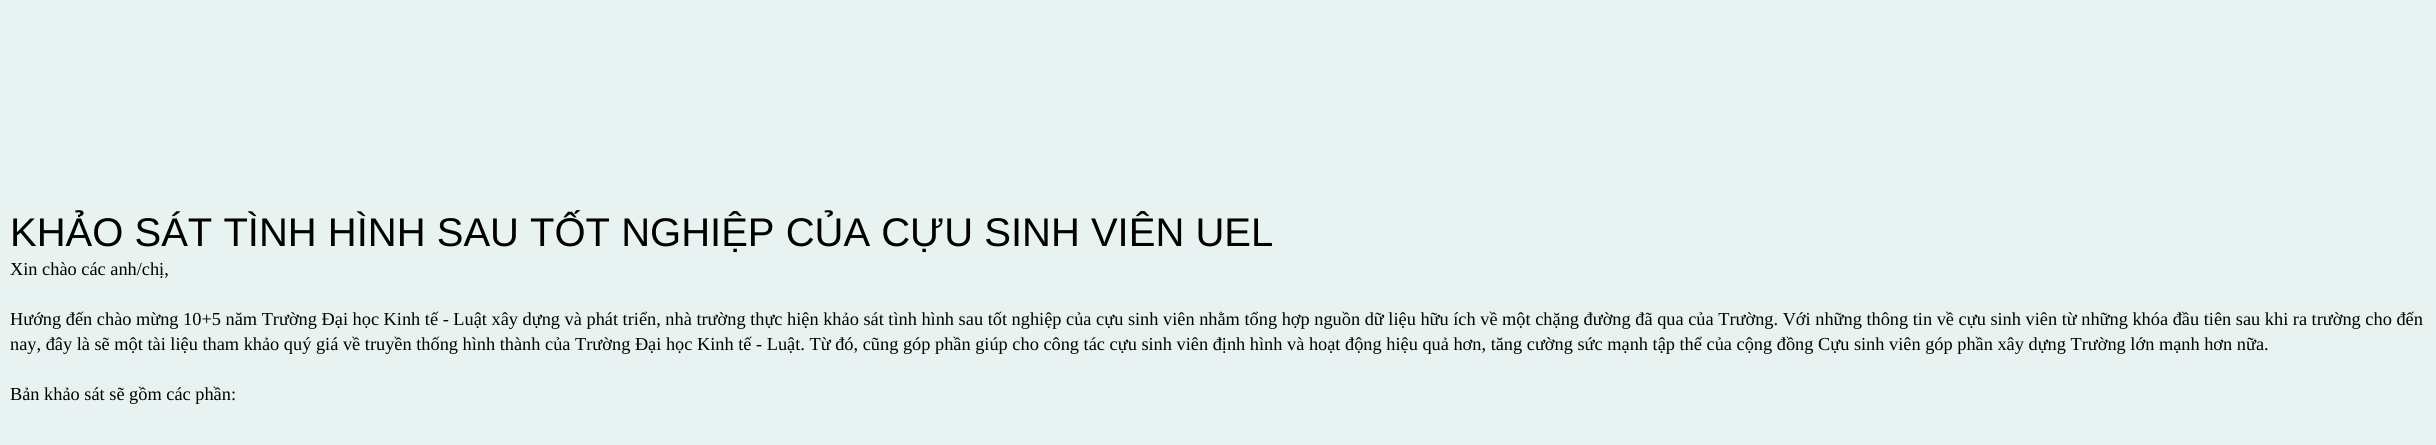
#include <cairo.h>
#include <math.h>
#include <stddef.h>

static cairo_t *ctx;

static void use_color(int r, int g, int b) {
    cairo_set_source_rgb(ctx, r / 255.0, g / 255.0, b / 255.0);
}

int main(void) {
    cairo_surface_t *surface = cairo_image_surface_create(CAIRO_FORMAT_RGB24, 2436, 445);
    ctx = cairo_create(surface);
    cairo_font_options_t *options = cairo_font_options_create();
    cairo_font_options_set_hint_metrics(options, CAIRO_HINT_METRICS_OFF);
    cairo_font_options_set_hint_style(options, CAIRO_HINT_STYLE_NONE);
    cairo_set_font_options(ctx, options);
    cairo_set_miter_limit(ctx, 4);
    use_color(232, 242, 240);
    cairo_paint(ctx);
    cairo_select_font_face(ctx, "Liberation Sans", CAIRO_FONT_SLANT_NORMAL, CAIRO_FONT_WEIGHT_NORMAL);
    cairo_set_font_size(ctx, 40);
    use_color(0, 0, 0);
    cairo_move_to(ctx, 10, 246);
    cairo_show_text(ctx, "KHẢO SÁT TÌNH HÌNH SAU TỐT NGHIỆP CỦA CỰU SINH VIÊN UEL");
    cairo_select_font_face(ctx, "Liberation Serif", CAIRO_FONT_SLANT_NORMAL, CAIRO_FONT_WEIGHT_NORMAL);
    cairo_set_font_size(ctx, 18.33);
    cairo_move_to(ctx, 10, 275);
    cairo_show_text(ctx, "Xin chào các anh/chị,");
    cairo_move_to(ctx, 10, 325);
    cairo_show_text(ctx, "Hướng đến chào mừng 10+5 năm Trường Đại học Kinh tế - Luật xây dựng và phát triển, nhà trường thực hiện khảo sát tình hình sau tốt nghiệp của cựu sinh viên nhằm tổng hợp nguồn dữ liệu hữu ích về một chặng đường đã qua của Trường. Với những thông tin về cựu sinh viên từ những khóa đầu tiên sau khi ra trường cho đến");
    cairo_move_to(ctx, 10, 350);
    cairo_show_text(ctx, "nay, đây là sẽ một tài liệu tham khảo quý giá về truyền thống hình thành của Trường Đại học Kinh tế - Luật. Từ đó, cũng góp phần giúp cho công tác cựu sinh viên định hình và hoạt động hiệu quả hơn, tăng cường sức mạnh tập thể của cộng đồng Cựu sinh viên góp phần xây dựng Trường lớn mạnh hơn nữa.");
    cairo_move_to(ctx, 10, 400);
    cairo_show_text(ctx, "Bản khảo sát sẽ gồm các phần:");
    cairo_surface_write_to_png(surface, "result.png");
    cairo_font_options_destroy(options);
    cairo_destroy(ctx);
    cairo_surface_destroy(surface);
    return 0;
}
